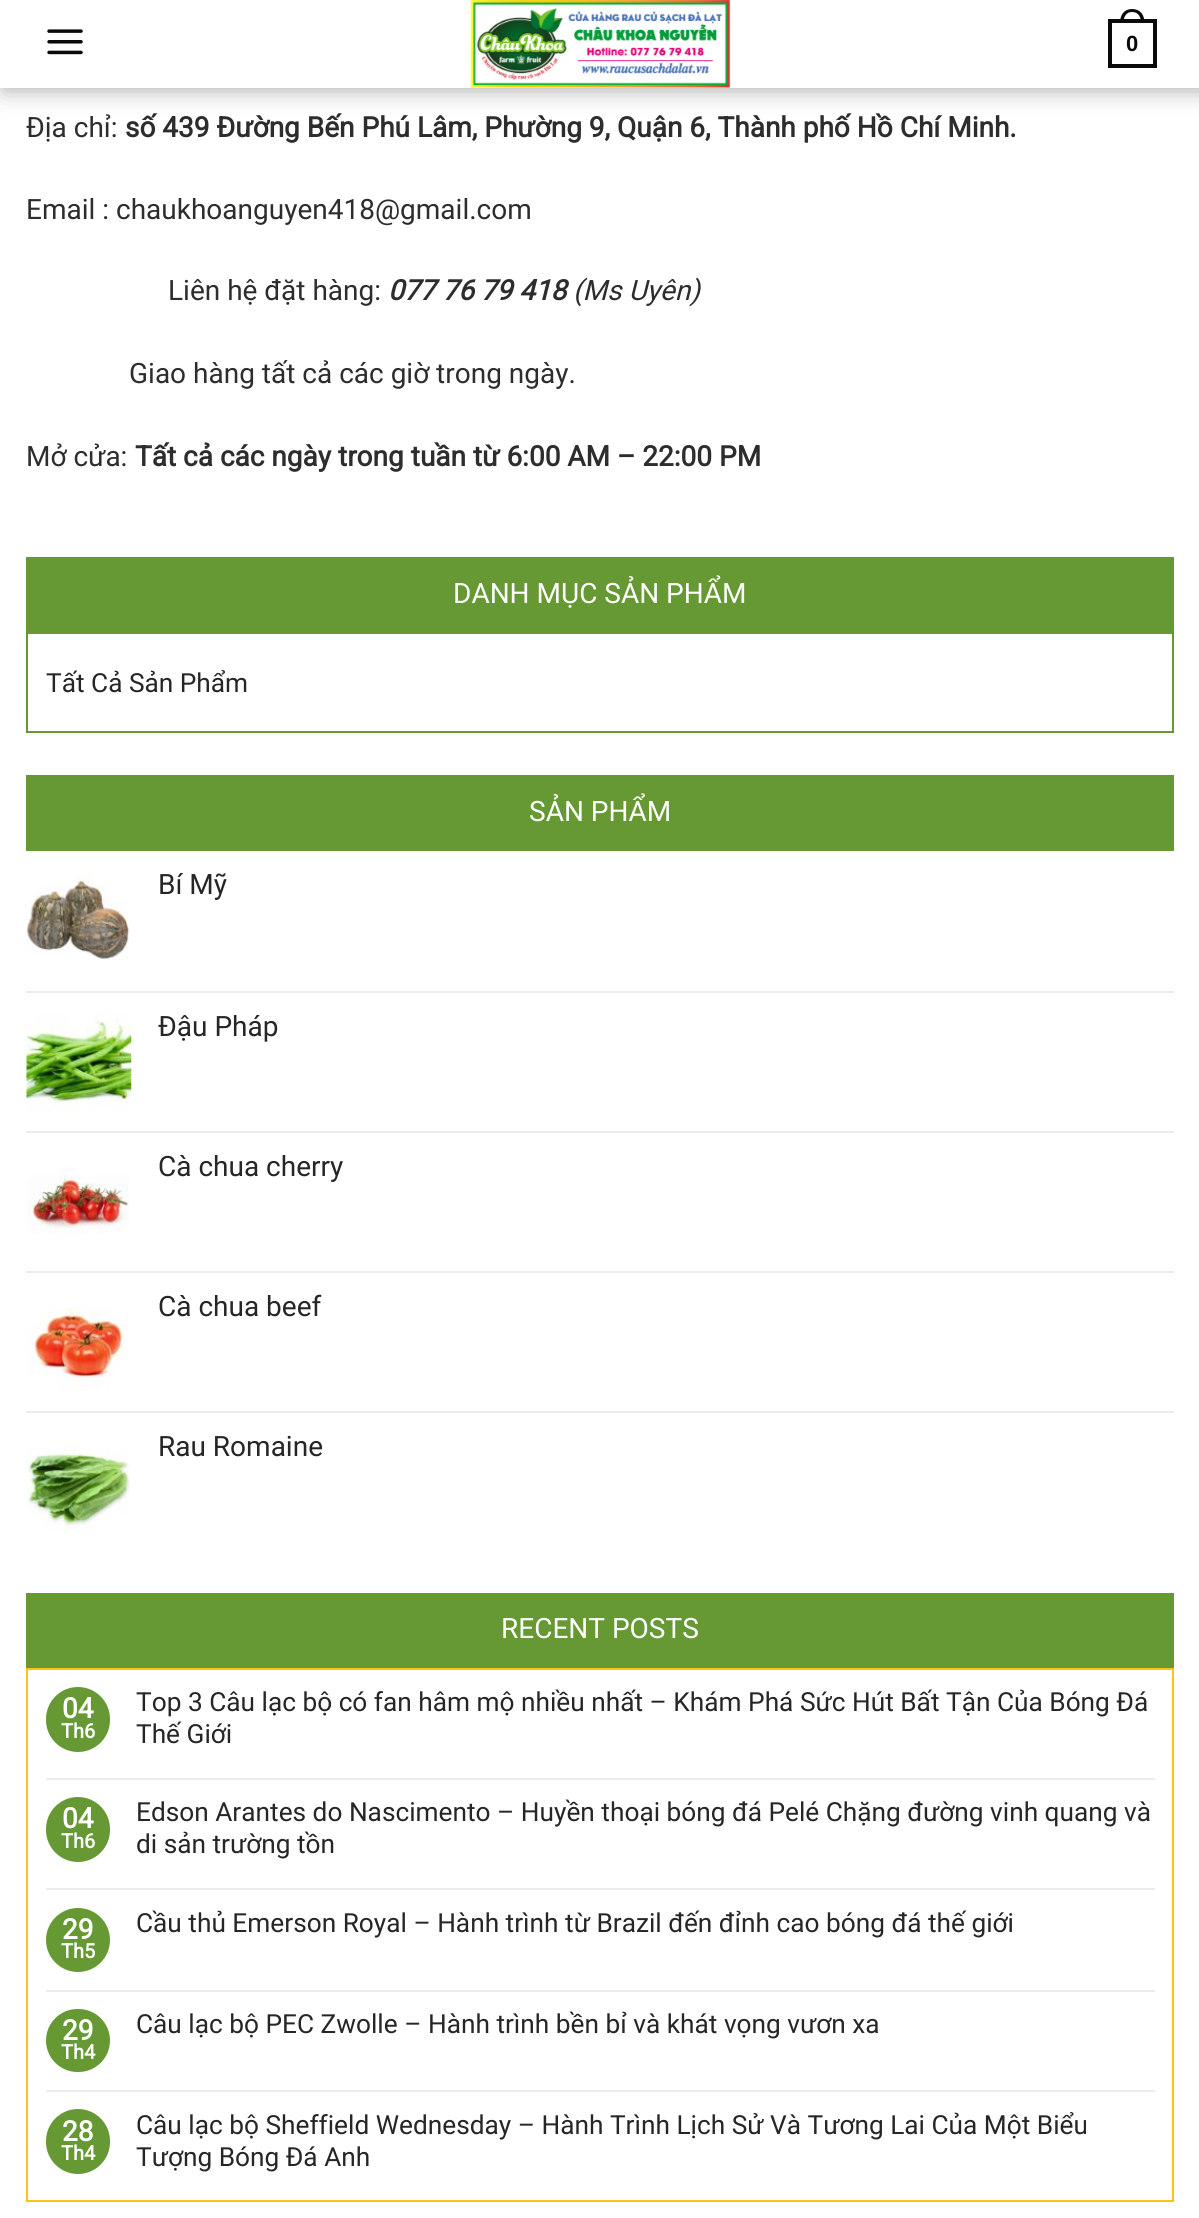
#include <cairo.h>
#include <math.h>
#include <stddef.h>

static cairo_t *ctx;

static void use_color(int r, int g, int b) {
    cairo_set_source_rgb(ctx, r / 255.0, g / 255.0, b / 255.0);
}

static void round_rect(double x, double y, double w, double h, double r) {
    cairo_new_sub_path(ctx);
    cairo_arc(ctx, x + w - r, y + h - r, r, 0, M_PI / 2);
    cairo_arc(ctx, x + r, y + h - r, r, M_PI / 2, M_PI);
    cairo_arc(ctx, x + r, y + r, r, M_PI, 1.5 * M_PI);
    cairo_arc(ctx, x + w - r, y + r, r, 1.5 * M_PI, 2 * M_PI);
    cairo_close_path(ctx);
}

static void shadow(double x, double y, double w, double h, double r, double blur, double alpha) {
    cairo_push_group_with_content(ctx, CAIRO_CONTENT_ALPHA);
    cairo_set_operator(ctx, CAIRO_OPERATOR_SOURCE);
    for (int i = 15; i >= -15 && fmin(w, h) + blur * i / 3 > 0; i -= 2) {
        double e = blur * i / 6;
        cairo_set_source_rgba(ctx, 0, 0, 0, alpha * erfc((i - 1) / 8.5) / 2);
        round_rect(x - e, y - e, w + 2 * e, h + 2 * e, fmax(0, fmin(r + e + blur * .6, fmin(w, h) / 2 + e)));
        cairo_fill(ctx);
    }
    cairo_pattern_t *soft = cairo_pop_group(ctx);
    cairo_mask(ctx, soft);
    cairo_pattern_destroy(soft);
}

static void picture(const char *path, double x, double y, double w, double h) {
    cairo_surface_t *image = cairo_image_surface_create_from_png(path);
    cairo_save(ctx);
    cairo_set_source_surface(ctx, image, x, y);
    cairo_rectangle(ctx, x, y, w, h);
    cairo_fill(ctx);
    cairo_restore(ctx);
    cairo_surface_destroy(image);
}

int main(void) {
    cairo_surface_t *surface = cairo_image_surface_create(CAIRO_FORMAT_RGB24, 1199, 2218);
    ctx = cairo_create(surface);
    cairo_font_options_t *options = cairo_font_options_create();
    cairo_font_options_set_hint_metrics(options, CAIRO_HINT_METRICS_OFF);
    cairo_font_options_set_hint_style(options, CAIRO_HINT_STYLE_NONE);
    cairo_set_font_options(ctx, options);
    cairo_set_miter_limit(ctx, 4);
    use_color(255, 255, 255);
    cairo_paint(ctx);
    cairo_save(ctx);
    cairo_set_fill_rule(ctx, CAIRO_FILL_RULE_EVEN_ODD);
    cairo_new_path(ctx);
    cairo_move_to(ctx, 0, 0);
    cairo_line_to(ctx, 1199, 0);
    cairo_line_to(ctx, 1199, 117);
    cairo_line_to(ctx, 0, 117);
    cairo_close_path(ctx);
    cairo_move_to(ctx, 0, 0);
    cairo_line_to(ctx, 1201, 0);
    cairo_line_to(ctx, 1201, 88);
    cairo_line_to(ctx, 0, 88);
    cairo_close_path(ctx);
    cairo_clip(ctx);
    use_color(0, 0, 0);
    shadow(2, 2, 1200, 87, 0, 9, 0.15);
    cairo_restore(ctx);
    cairo_set_source_rgba(ctx, 1, 1, 1, 0.9);
    cairo_rectangle(ctx, 0, 87, 1199, 1);
    cairo_fill(ctx);
    cairo_save(ctx);
    cairo_set_fill_rule(ctx, CAIRO_FILL_RULE_EVEN_ODD);
    cairo_new_path(ctx);
    cairo_move_to(ctx, 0, 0);
    cairo_line_to(ctx, 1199, 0);
    cairo_line_to(ctx, 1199, 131);
    cairo_line_to(ctx, 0, 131);
    cairo_close_path(ctx);
    cairo_move_to(ctx, 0, 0);
    cairo_line_to(ctx, 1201, 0);
    cairo_line_to(ctx, 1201, 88);
    cairo_line_to(ctx, 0, 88);
    cairo_close_path(ctx);
    cairo_clip(ctx);
    use_color(0, 0, 0);
    shadow(4, 4, 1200, 87, 0, 13, 0.2);
    cairo_restore(ctx);
    picture("img1.png", 47, 29, 36, 26);
    picture("img2.png", 470, 0, 261, 88);
    cairo_rectangle(ctx, 1110, 21, 45, 45);
    use_color(10, 10, 10);
    cairo_set_line_width(ctx, 4);
    cairo_stroke(ctx);
    cairo_set_fill_rule(ctx, CAIRO_FILL_RULE_EVEN_ODD);
    cairo_new_path(ctx);
    cairo_move_to(ctx, 1132, 9);
    cairo_curve_to(ctx, 1140.5, 9, 1144.5, 15, 1144.5, 23);
    cairo_line_to(ctx, 1120, 23);
    cairo_curve_to(ctx, 1120, 15, 1124, 9, 1132, 9);
    cairo_close_path(ctx);
    cairo_move_to(ctx, 1132, 12);
    cairo_curve_to(ctx, 1138.5, 12, 1141, 17, 1141, 23);
    cairo_line_to(ctx, 1123.5, 23);
    cairo_curve_to(ctx, 1123.5, 17, 1126, 12, 1132, 12);
    cairo_close_path(ctx);
    cairo_fill(ctx);
    cairo_select_font_face(ctx, "Liberation Sans", CAIRO_FONT_SLANT_NORMAL, CAIRO_FONT_WEIGHT_BOLD);
    cairo_set_font_size(ctx, 22);
    cairo_move_to(ctx, 1126, 51);
    cairo_show_text(ctx, "0");
    cairo_select_font_face(ctx, "Roboto", CAIRO_FONT_SLANT_NORMAL, CAIRO_FONT_WEIGHT_NORMAL);
    cairo_set_font_size(ctx, 28);
    use_color(45, 45, 45);
    cairo_move_to(ctx, 26, 137);
    cairo_show_text(ctx, "Địa chỉ:");
    cairo_select_font_face(ctx, "Roboto", CAIRO_FONT_SLANT_NORMAL, CAIRO_FONT_WEIGHT_BOLD);
    cairo_move_to(ctx, 125, 137);
    cairo_show_text(ctx, "số 439 Đường Bến Phú Lâm, Phường 9, Quận 6, Thành phố Hồ Chí Minh.");
    cairo_select_font_face(ctx, "Roboto", CAIRO_FONT_SLANT_NORMAL, CAIRO_FONT_WEIGHT_NORMAL);
    cairo_move_to(ctx, 26, 219);
    cairo_show_text(ctx, "Email : chaukhoanguyen418@gmail.com");
    cairo_move_to(ctx, 168, 300);
    cairo_show_text(ctx, "Liên hệ đặt hàng:");
    cairo_select_font_face(ctx, "Roboto", CAIRO_FONT_SLANT_ITALIC, CAIRO_FONT_WEIGHT_BOLD);
    cairo_move_to(ctx, 388, 300);
    cairo_show_text(ctx, "077 76 79 418");
    cairo_select_font_face(ctx, "Roboto", CAIRO_FONT_SLANT_ITALIC, CAIRO_FONT_WEIGHT_NORMAL);
    cairo_move_to(ctx, 573, 300);
    cairo_show_text(ctx, "(Ms Uyên)");
    cairo_select_font_face(ctx, "Roboto", CAIRO_FONT_SLANT_NORMAL, CAIRO_FONT_WEIGHT_NORMAL);
    cairo_move_to(ctx, 129, 383);
    cairo_show_text(ctx, "Giao hàng tất cả các giờ trong ngày.");
    cairo_move_to(ctx, 26, 466);
    cairo_show_text(ctx, "Mở cửa:");
    cairo_select_font_face(ctx, "Roboto", CAIRO_FONT_SLANT_NORMAL, CAIRO_FONT_WEIGHT_BOLD);
    cairo_move_to(ctx, 135, 466);
    cairo_show_text(ctx, "Tất cả các ngày trong tuần từ 6:00 AM – 22:00 PM");
    use_color(102, 153, 51);
    cairo_rectangle(ctx, 26, 557, 1148, 75);
    cairo_fill(ctx);
    cairo_select_font_face(ctx, "Roboto", CAIRO_FONT_SLANT_NORMAL, CAIRO_FONT_WEIGHT_NORMAL);
    use_color(255, 255, 255);
    cairo_move_to(ctx, 453, 603);
    cairo_show_text(ctx, "DANH MỤC SẢN PHẨM");
    cairo_rectangle(ctx, 27, 633, 1146, 99);
    use_color(102, 153, 51);
    cairo_set_line_width(ctx, 2);
    cairo_stroke(ctx);
    cairo_set_font_size(ctx, 26.25);
    use_color(38, 38, 38);
    cairo_move_to(ctx, 46, 692);
    cairo_show_text(ctx, "Tất Cả Sản Phẩm");
    use_color(102, 153, 51);
    cairo_rectangle(ctx, 26, 775, 1148, 76);
    cairo_fill(ctx);
    cairo_set_font_size(ctx, 28);
    use_color(255, 255, 255);
    cairo_move_to(ctx, 529, 821);
    cairo_show_text(ctx, "SẢN PHẨM");
    picture("img3.png", 26, 871, 105, 89);
    use_color(38, 38, 38);
    cairo_move_to(ctx, 158, 894);
    cairo_show_text(ctx, "Bí Mỹ");
    use_color(236, 236, 236);
    cairo_rectangle(ctx, 26, 991, 1148, 2);
    cairo_fill(ctx);
    picture("img4.png", 26, 1010, 106, 101);
    use_color(38, 38, 38);
    cairo_move_to(ctx, 158, 1036);
    cairo_show_text(ctx, "Đậu Pháp");
    use_color(236, 236, 236);
    cairo_rectangle(ctx, 26, 1131, 1148, 2);
    cairo_fill(ctx);
    picture("img5.png", 26, 1167, 103, 67);
    use_color(38, 38, 38);
    cairo_move_to(ctx, 158, 1176);
    cairo_show_text(ctx, "Cà chua cherry");
    use_color(236, 236, 236);
    cairo_rectangle(ctx, 26, 1271, 1148, 2);
    cairo_fill(ctx);
    picture("img6.png", 27, 1307, 100, 84);
    use_color(38, 38, 38);
    cairo_move_to(ctx, 158, 1316);
    cairo_show_text(ctx, "Cà chua beef");
    use_color(236, 236, 236);
    cairo_rectangle(ctx, 26, 1411, 1148, 2);
    cairo_fill(ctx);
    picture("img7.png", 26, 1447, 104, 85);
    use_color(38, 38, 38);
    cairo_move_to(ctx, 158, 1456);
    cairo_show_text(ctx, "Rau Romaine");
    use_color(102, 153, 51);
    cairo_rectangle(ctx, 26, 1593, 1148, 75);
    cairo_fill(ctx);
    use_color(255, 255, 255);
    cairo_move_to(ctx, 501, 1638);
    cairo_show_text(ctx, "RECENT POSTS");
    cairo_rectangle(ctx, 27, 1669, 1146, 532);
    use_color(253, 194, 21);
    cairo_stroke(ctx);
    use_color(102, 153, 51);
    round_rect(46, 1687, 64, 65, 32);
    cairo_fill(ctx);
    cairo_select_font_face(ctx, "Roboto", CAIRO_FONT_SLANT_NORMAL, CAIRO_FONT_WEIGHT_BOLD);
    use_color(255, 255, 255);
    cairo_move_to(ctx, 62, 1718);
    cairo_show_text(ctx, "04");
    cairo_set_font_size(ctx, 20);
    cairo_move_to(ctx, 61, 1738);
    cairo_show_text(ctx, "Th6");
    cairo_select_font_face(ctx, "Roboto", CAIRO_FONT_SLANT_NORMAL, CAIRO_FONT_WEIGHT_NORMAL);
    cairo_set_font_size(ctx, 26.25);
    use_color(38, 38, 38);
    cairo_move_to(ctx, 136, 1711);
    cairo_show_text(ctx, "Top 3 Câu lạc bộ có fan hâm mộ nhiều nhất – Khám Phá Sức Hút Bất Tận Của Bóng Đá");
    cairo_move_to(ctx, 136, 1743);
    cairo_show_text(ctx, "Thế Giới");
    use_color(236, 236, 236);
    cairo_rectangle(ctx, 46, 1778, 1109, 2);
    cairo_fill(ctx);
    use_color(102, 153, 51);
    round_rect(46, 1797, 64, 65, 32);
    cairo_fill(ctx);
    cairo_select_font_face(ctx, "Roboto", CAIRO_FONT_SLANT_NORMAL, CAIRO_FONT_WEIGHT_BOLD);
    cairo_set_font_size(ctx, 28);
    use_color(255, 255, 255);
    cairo_move_to(ctx, 62, 1828);
    cairo_show_text(ctx, "04");
    cairo_set_font_size(ctx, 20);
    cairo_move_to(ctx, 61, 1848);
    cairo_show_text(ctx, "Th6");
    cairo_select_font_face(ctx, "Roboto", CAIRO_FONT_SLANT_NORMAL, CAIRO_FONT_WEIGHT_NORMAL);
    cairo_set_font_size(ctx, 26.25);
    use_color(38, 38, 38);
    cairo_move_to(ctx, 136, 1821);
    cairo_show_text(ctx, "Edson Arantes do Nascimento – Huyền thoại bóng đá Pelé Chặng đường vinh quang và");
    cairo_move_to(ctx, 136, 1853);
    cairo_show_text(ctx, "di sản trường tồn");
    use_color(236, 236, 236);
    cairo_rectangle(ctx, 46, 1888, 1109, 2);
    cairo_fill(ctx);
    use_color(102, 153, 51);
    cairo_arc(ctx, 78, 1940, 32, 0, 2 * M_PI);
    cairo_fill(ctx);
    cairo_select_font_face(ctx, "Roboto", CAIRO_FONT_SLANT_NORMAL, CAIRO_FONT_WEIGHT_BOLD);
    cairo_set_font_size(ctx, 28);
    use_color(255, 255, 255);
    cairo_move_to(ctx, 62, 1939);
    cairo_show_text(ctx, "29");
    cairo_set_font_size(ctx, 20);
    cairo_move_to(ctx, 61, 1958);
    cairo_show_text(ctx, "Th5");
    cairo_select_font_face(ctx, "Roboto", CAIRO_FONT_SLANT_NORMAL, CAIRO_FONT_WEIGHT_NORMAL);
    cairo_set_font_size(ctx, 26.25);
    use_color(38, 38, 38);
    cairo_move_to(ctx, 136, 1932);
    cairo_show_text(ctx, "Cầu thủ Emerson Royal – Hành trình từ Brazil đến đỉnh cao bóng đá thế giới");
    use_color(236, 236, 236);
    cairo_rectangle(ctx, 46, 1990, 1109, 2);
    cairo_fill(ctx);
    use_color(102, 153, 51);
    round_rect(46, 2009, 64, 63, 31.5);
    cairo_fill(ctx);
    cairo_select_font_face(ctx, "Roboto", CAIRO_FONT_SLANT_NORMAL, CAIRO_FONT_WEIGHT_BOLD);
    cairo_set_font_size(ctx, 28);
    use_color(255, 255, 255);
    cairo_move_to(ctx, 62, 2040);
    cairo_show_text(ctx, "29");
    cairo_set_font_size(ctx, 20);
    cairo_move_to(ctx, 61, 2059);
    cairo_show_text(ctx, "Th4");
    cairo_select_font_face(ctx, "Roboto", CAIRO_FONT_SLANT_NORMAL, CAIRO_FONT_WEIGHT_NORMAL);
    cairo_set_font_size(ctx, 26.25);
    use_color(38, 38, 38);
    cairo_move_to(ctx, 136, 2033);
    cairo_show_text(ctx, "Câu lạc bộ PEC Zwolle – Hành trình bền bỉ và khát vọng vươn xa");
    use_color(236, 236, 236);
    cairo_rectangle(ctx, 46, 2090, 1109, 2);
    cairo_fill(ctx);
    use_color(102, 153, 51);
    round_rect(46, 2109, 64, 65, 32);
    cairo_fill(ctx);
    cairo_select_font_face(ctx, "Roboto", CAIRO_FONT_SLANT_NORMAL, CAIRO_FONT_WEIGHT_BOLD);
    cairo_set_font_size(ctx, 28);
    use_color(255, 255, 255);
    cairo_move_to(ctx, 62, 2141);
    cairo_show_text(ctx, "28");
    cairo_set_font_size(ctx, 20);
    cairo_move_to(ctx, 61, 2160);
    cairo_show_text(ctx, "Th4");
    cairo_select_font_face(ctx, "Roboto", CAIRO_FONT_SLANT_NORMAL, CAIRO_FONT_WEIGHT_NORMAL);
    cairo_set_font_size(ctx, 26.25);
    use_color(38, 38, 38);
    cairo_move_to(ctx, 136, 2134);
    cairo_show_text(ctx, "Câu lạc bộ Sheffield Wednesday – Hành Trình Lịch Sử Và Tương Lai Của Một Biểu");
    cairo_move_to(ctx, 136, 2166);
    cairo_show_text(ctx, "Tượng Bóng Đá Anh");
    cairo_surface_write_to_png(surface, "result.png");
    cairo_font_options_destroy(options);
    cairo_destroy(ctx);
    cairo_surface_destroy(surface);
    return 0;
}
